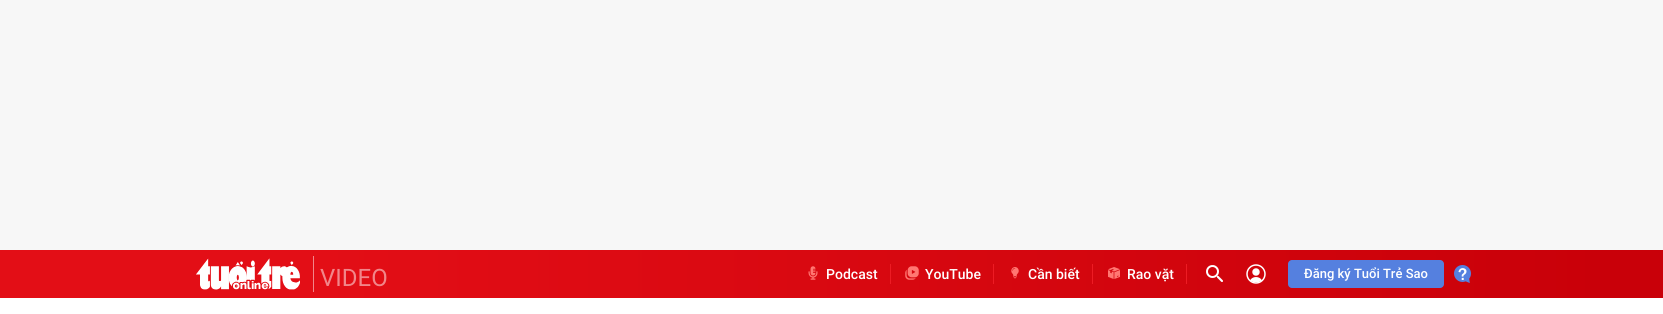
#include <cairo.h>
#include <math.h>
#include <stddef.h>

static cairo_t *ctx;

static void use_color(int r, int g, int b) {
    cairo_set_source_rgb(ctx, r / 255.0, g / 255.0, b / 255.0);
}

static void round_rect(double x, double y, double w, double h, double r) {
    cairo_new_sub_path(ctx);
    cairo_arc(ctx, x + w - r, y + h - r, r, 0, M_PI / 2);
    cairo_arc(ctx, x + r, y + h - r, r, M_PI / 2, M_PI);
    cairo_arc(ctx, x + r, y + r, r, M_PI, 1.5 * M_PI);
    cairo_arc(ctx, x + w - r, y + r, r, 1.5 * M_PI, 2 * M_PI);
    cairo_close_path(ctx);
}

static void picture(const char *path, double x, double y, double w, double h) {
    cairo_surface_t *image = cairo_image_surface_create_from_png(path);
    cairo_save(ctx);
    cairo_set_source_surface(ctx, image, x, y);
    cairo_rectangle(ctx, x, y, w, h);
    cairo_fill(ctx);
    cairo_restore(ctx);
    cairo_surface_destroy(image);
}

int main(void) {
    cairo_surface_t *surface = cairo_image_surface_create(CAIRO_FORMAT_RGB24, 1663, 314);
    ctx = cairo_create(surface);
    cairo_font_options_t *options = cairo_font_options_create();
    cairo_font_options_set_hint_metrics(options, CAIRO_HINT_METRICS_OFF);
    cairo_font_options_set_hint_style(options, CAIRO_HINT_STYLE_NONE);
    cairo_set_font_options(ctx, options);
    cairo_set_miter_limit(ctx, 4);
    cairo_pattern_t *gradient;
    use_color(255, 255, 255);
    cairo_paint(ctx);
    use_color(247, 247, 247);
    cairo_rectangle(ctx, 0, 0, 1663, 250);
    cairo_fill(ctx);
    gradient = cairo_pattern_create_linear(-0.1, 272, 1663, 276);
    cairo_pattern_add_color_stop_rgba(gradient, 0.19, 0.89, 0.055, 0.086, 1);
    cairo_pattern_add_color_stop_rgba(gradient, 0.97, 0.788, 0, 0.035, 1);
    cairo_set_source(ctx, gradient);
    cairo_pattern_destroy(gradient);
    cairo_rectangle(ctx, 0, 250, 1663, 48);
    cairo_fill(ctx);
    use_color(241, 134, 138);
    cairo_rectangle(ctx, 313, 256, 1, 36);
    cairo_fill(ctx);
    picture("img1.png", 196, 258, 104, 32);
    cairo_select_font_face(ctx, "Roboto", CAIRO_FONT_SLANT_NORMAL, CAIRO_FONT_WEIGHT_NORMAL);
    cairo_set_font_size(ctx, 24);
    cairo_move_to(ctx, 320, 286);
    cairo_show_text(ctx, "VIDEO");
    use_color(237, 28, 36);
    cairo_rectangle(ctx, 890, 264, 1, 20);
    cairo_fill(ctx);
    picture("img2.png", 808, 266, 10, 14);
    cairo_select_font_face(ctx, "Roboto Medium", CAIRO_FONT_SLANT_NORMAL, CAIRO_FONT_WEIGHT_NORMAL);
    cairo_set_font_size(ctx, 14);
    use_color(255, 255, 255);
    cairo_move_to(ctx, 826, 279);
    cairo_show_text(ctx, "Podcast");
    use_color(237, 28, 36);
    cairo_rectangle(ctx, 993, 264, 1, 20);
    cairo_fill(ctx);
    picture("img3.png", 905, 266, 14, 14);
    use_color(255, 255, 255);
    cairo_move_to(ctx, 925, 279);
    cairo_show_text(ctx, "YouTube");
    use_color(237, 28, 36);
    cairo_rectangle(ctx, 1092, 264, 1, 20);
    cairo_fill(ctx);
    picture("img4.png", 1011, 267, 8, 12);
    use_color(255, 255, 255);
    cairo_move_to(ctx, 1028, 279);
    cairo_show_text(ctx, "Cần biết");
    use_color(237, 28, 36);
    cairo_rectangle(ctx, 1186, 264, 1, 20);
    cairo_fill(ctx);
    picture("img5.png", 1108, 267, 12, 12);
    use_color(255, 255, 255);
    cairo_move_to(ctx, 1127, 279);
    cairo_show_text(ctx, "Rao vặt");
    picture("img6.png", 1206, 265, 17, 17);
    picture("img7.png", 1246, 264, 20, 20);
    use_color(85, 128, 223);
    round_rect(1288, 260, 156, 28, 4);
    cairo_fill(ctx);
    cairo_set_font_size(ctx, 13);
    use_color(255, 255, 255);
    cairo_move_to(ctx, 1304, 278);
    cairo_show_text(ctx, "Đăng ký Tuổi Trẻ Sao");
    picture("img8.png", 1454, 265, 17, 18);
    cairo_surface_write_to_png(surface, "result.png");
    cairo_font_options_destroy(options);
    cairo_destroy(ctx);
    cairo_surface_destroy(surface);
    return 0;
}
